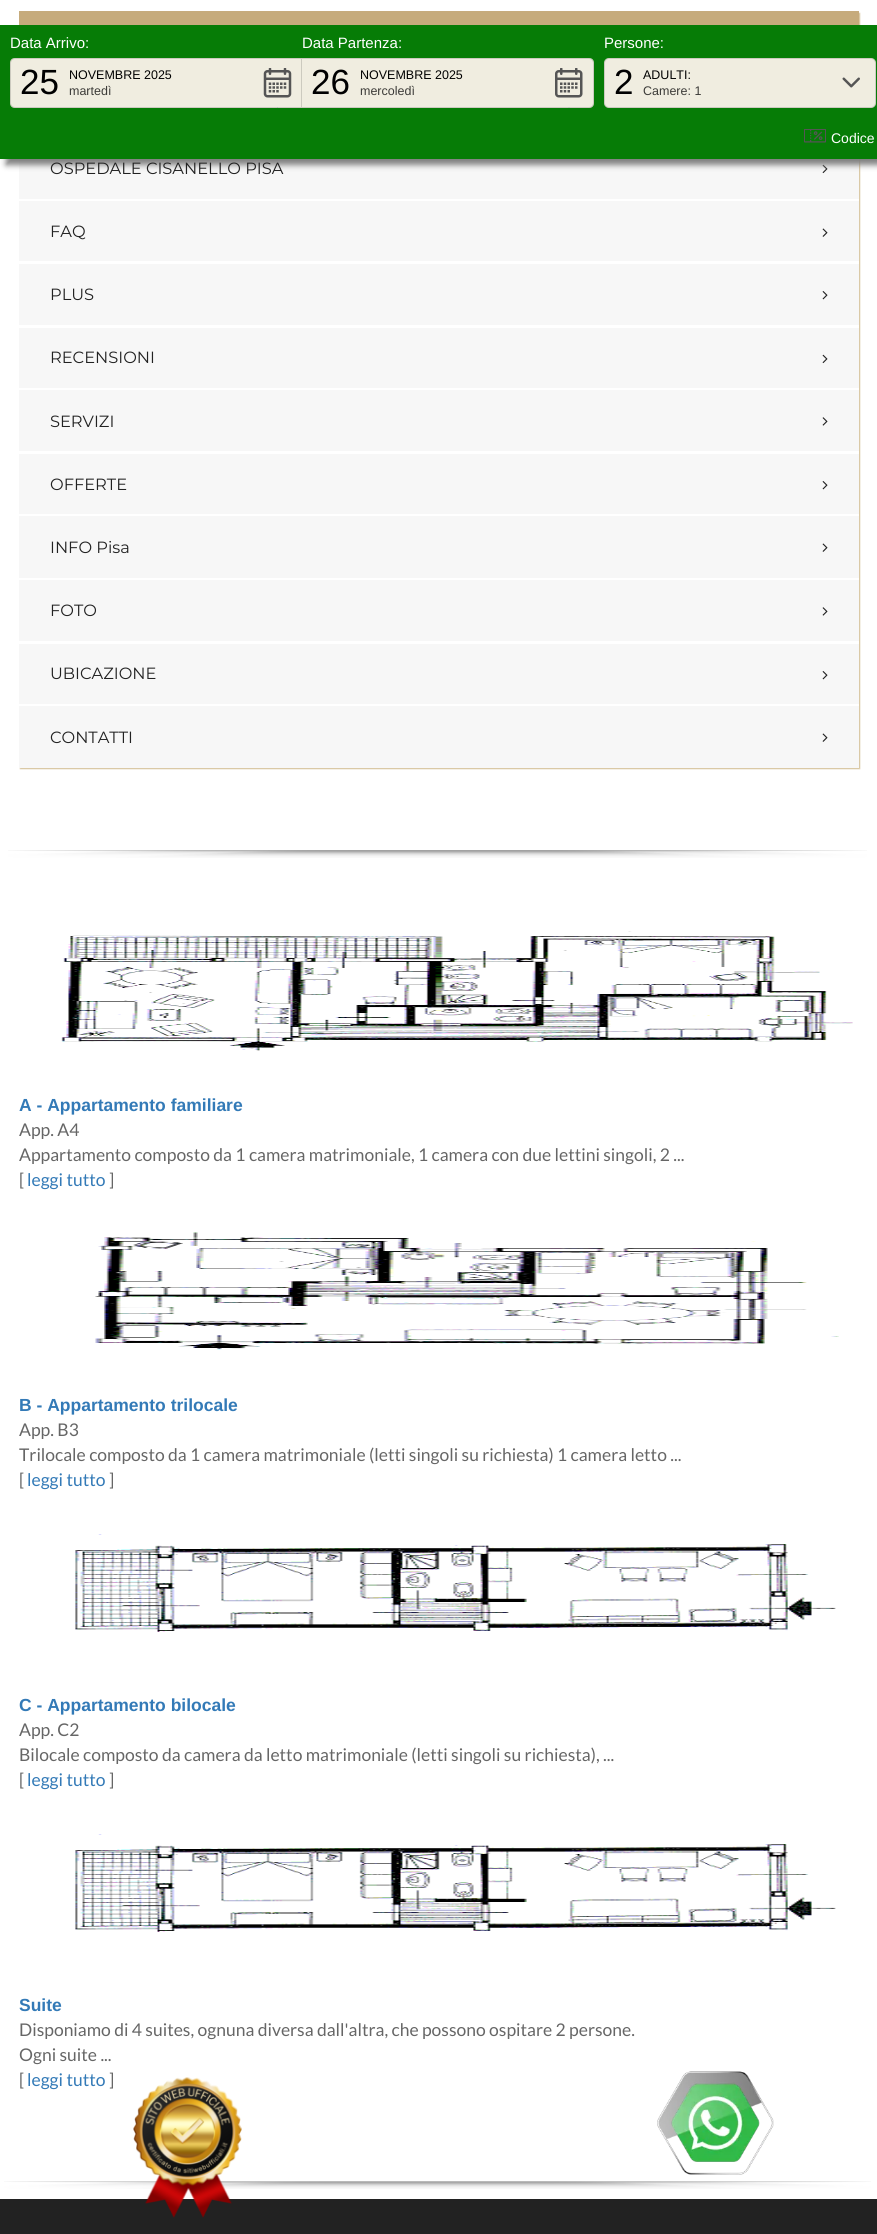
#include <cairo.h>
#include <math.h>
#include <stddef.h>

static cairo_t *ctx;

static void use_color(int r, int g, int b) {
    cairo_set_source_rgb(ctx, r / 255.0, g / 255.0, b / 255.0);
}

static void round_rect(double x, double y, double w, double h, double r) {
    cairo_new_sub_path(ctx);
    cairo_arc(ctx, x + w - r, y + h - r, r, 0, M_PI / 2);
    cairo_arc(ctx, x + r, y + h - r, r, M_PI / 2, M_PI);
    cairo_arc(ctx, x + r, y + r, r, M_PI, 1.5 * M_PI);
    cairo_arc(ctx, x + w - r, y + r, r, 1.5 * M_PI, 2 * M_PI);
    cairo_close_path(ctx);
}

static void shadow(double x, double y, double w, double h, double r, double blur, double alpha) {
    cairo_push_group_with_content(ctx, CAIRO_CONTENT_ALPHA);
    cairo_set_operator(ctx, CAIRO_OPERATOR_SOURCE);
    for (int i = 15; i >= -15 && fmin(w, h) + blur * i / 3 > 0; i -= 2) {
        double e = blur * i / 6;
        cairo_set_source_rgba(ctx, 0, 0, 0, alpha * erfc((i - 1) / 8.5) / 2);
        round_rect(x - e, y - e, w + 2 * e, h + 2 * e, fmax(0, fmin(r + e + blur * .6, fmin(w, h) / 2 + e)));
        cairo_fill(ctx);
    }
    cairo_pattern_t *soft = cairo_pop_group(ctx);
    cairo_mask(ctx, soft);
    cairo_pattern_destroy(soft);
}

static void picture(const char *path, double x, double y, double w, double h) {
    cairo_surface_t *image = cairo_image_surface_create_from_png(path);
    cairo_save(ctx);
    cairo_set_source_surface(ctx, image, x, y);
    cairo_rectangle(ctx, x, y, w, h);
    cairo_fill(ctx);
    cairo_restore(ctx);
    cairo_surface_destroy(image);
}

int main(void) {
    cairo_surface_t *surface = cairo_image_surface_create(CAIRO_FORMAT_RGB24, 877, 2234);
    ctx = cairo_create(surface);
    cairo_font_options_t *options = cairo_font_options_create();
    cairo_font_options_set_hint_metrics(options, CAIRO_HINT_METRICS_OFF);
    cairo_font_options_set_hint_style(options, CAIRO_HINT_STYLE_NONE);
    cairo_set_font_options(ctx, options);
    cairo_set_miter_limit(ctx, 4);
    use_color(255, 255, 255);
    cairo_paint(ctx);
    cairo_save(ctx);
    cairo_set_fill_rule(ctx, CAIRO_FILL_RULE_EVEN_ODD);
    cairo_new_path(ctx);
    cairo_move_to(ctx, 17, 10);
    cairo_line_to(ctx, 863, 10);
    cairo_line_to(ctx, 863, 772);
    cairo_line_to(ctx, 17, 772);
    cairo_close_path(ctx);
    cairo_move_to(ctx, 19, 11);
    cairo_line_to(ctx, 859, 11);
    cairo_line_to(ctx, 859, 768);
    cairo_line_to(ctx, 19, 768);
    cairo_close_path(ctx);
    cairo_clip(ctx);
    use_color(213, 194, 154);
    shadow(20, 13, 840, 756, 0, 0.5, 1);
    cairo_restore(ctx);
    use_color(198, 171, 124);
    cairo_rectangle(ctx, 19, 11, 840, 14);
    cairo_fill(ctx);
    use_color(247, 247, 247);
    cairo_rectangle(ctx, 19, 159, 840, 40);
    cairo_fill(ctx);
    picture("img5.png", 822, 164, 6, 10);
    use_color(128, 128, 128);
    shadow(6, 31, 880, 134, 0, 3, 1);
    use_color(6, 124, 6);
    cairo_rectangle(ctx, 0, 25, 877, 134);
    cairo_fill(ctx);
    cairo_select_font_face(ctx, "Liberation Sans", CAIRO_FONT_SLANT_NORMAL, CAIRO_FONT_WEIGHT_NORMAL);
    cairo_set_font_size(ctx, 15);
    use_color(255, 255, 255);
    cairo_move_to(ctx, 10, 48);
    cairo_show_text(ctx, "Data Arrivo:");
    use_color(240, 237, 224);
    cairo_new_path(ctx);
    cairo_move_to(ctx, 15, 58);
    cairo_line_to(ctx, 303, 58);
    cairo_line_to(ctx, 303, 108);
    cairo_line_to(ctx, 15, 108);
    cairo_curve_to(ctx, 12, 108, 10, 106, 10, 103);
    cairo_line_to(ctx, 10, 63);
    cairo_curve_to(ctx, 10, 60, 12, 58, 15, 58);
    cairo_close_path(ctx);
    cairo_fill(ctx);
    cairo_new_path(ctx);
    cairo_move_to(ctx, 15, 58.5);
    cairo_line_to(ctx, 302.5, 58.5);
    cairo_line_to(ctx, 302.5, 107.5);
    cairo_line_to(ctx, 15, 107.5);
    cairo_curve_to(ctx, 12.5, 107.5, 10.5, 105.5, 10.5, 103);
    cairo_line_to(ctx, 10.5, 63);
    cairo_curve_to(ctx, 10.5, 60.5, 12.5, 58.5, 15, 58.5);
    cairo_close_path(ctx);
    cairo_set_source_rgba(ctx, 0, 0, 0, 0.15);
    cairo_set_line_width(ctx, 1);
    cairo_stroke(ctx);
    cairo_set_font_size(ctx, 35);
    use_color(0, 0, 0);
    cairo_move_to(ctx, 20, 94);
    cairo_show_text(ctx, "25");
    cairo_set_font_size(ctx, 12.5);
    cairo_move_to(ctx, 69, 79);
    cairo_show_text(ctx, "NOVEMBRE 2025");
    use_color(60, 59, 56);
    cairo_move_to(ctx, 69, 95);
    cairo_show_text(ctx, "martedì");
    picture("img1.png", 263, 68, 29, 30);
    use_color(112, 169, 161);
    cairo_new_path(ctx);
    cairo_move_to(ctx, 278, 108);
    cairo_line_to(ctx, 277, 108);
    cairo_line_to(ctx, 277.5, 107.5);
    cairo_close_path(ctx);
    cairo_fill(ctx);
    cairo_set_font_size(ctx, 15);
    use_color(255, 255, 255);
    cairo_move_to(ctx, 302, 48);
    cairo_show_text(ctx, "Data Partenza:");
    use_color(240, 237, 224);
    cairo_new_path(ctx);
    cairo_move_to(ctx, 301, 58);
    cairo_line_to(ctx, 589, 58);
    cairo_curve_to(ctx, 592, 58, 594, 60, 594, 63);
    cairo_line_to(ctx, 594, 103);
    cairo_curve_to(ctx, 594, 106, 592, 108, 589, 108);
    cairo_line_to(ctx, 301, 108);
    cairo_close_path(ctx);
    cairo_fill(ctx);
    cairo_new_path(ctx);
    cairo_move_to(ctx, 301.5, 58.5);
    cairo_line_to(ctx, 589, 58.5);
    cairo_curve_to(ctx, 591.5, 58.5, 593.5, 60.5, 593.5, 63);
    cairo_line_to(ctx, 593.5, 103);
    cairo_curve_to(ctx, 593.5, 105.5, 591.5, 107.5, 589, 107.5);
    cairo_line_to(ctx, 301.5, 107.5);
    cairo_close_path(ctx);
    cairo_set_source_rgba(ctx, 0, 0, 0, 0.15);
    cairo_stroke(ctx);
    cairo_set_font_size(ctx, 35);
    use_color(0, 0, 0);
    cairo_move_to(ctx, 311, 94);
    cairo_show_text(ctx, "26");
    cairo_set_font_size(ctx, 12.5);
    cairo_move_to(ctx, 360, 79);
    cairo_show_text(ctx, "NOVEMBRE 2025");
    use_color(60, 59, 56);
    cairo_move_to(ctx, 360, 95);
    cairo_show_text(ctx, "mercoledì");
    picture("img2.png", 555, 68, 28, 30);
    use_color(112, 169, 161);
    cairo_new_path(ctx);
    cairo_move_to(ctx, 569.5, 108);
    cairo_line_to(ctx, 568.5, 108);
    cairo_line_to(ctx, 569, 107.5);
    cairo_close_path(ctx);
    cairo_fill(ctx);
    cairo_set_font_size(ctx, 15);
    use_color(255, 255, 255);
    cairo_move_to(ctx, 604, 48);
    cairo_show_text(ctx, "Persone:");
    use_color(240, 237, 224);
    round_rect(604, 58, 272, 50, 5);
    cairo_fill(ctx);
    round_rect(604.5, 58.5, 271, 49, 4.5);
    cairo_set_source_rgba(ctx, 0, 0, 0, 0.15);
    cairo_stroke(ctx);
    cairo_set_font_size(ctx, 35);
    use_color(0, 0, 0);
    cairo_move_to(ctx, 614, 94);
    cairo_show_text(ctx, "2");
    cairo_set_font_size(ctx, 12.5);
    cairo_move_to(ctx, 643, 79);
    cairo_show_text(ctx, "ADULTI:");
    use_color(60, 59, 56);
    cairo_move_to(ctx, 643, 95);
    cairo_show_text(ctx, "Camere: 1");
    picture("img3.png", 842, 77, 18, 11);
    picture("img4.png", 804, 129, 22, 14);
    cairo_set_font_size(ctx, 14);
    use_color(255, 255, 255);
    cairo_move_to(ctx, 831, 143);
    cairo_show_text(ctx, "Codice");
    cairo_select_font_face(ctx, "Montserrat", CAIRO_FONT_SLANT_NORMAL, CAIRO_FONT_WEIGHT_NORMAL);
    cairo_set_font_size(ctx, 16.25);
    use_color(34, 34, 34);
    cairo_move_to(ctx, 50, 174);
    cairo_show_text(ctx, "OSPEDALE CISANELLO PISA");
    use_color(247, 247, 247);
    cairo_rectangle(ctx, 19, 201, 840, 60);
    cairo_fill(ctx);
    use_color(34, 34, 34);
    cairo_move_to(ctx, 50, 237);
    cairo_show_text(ctx, "FAQ");
    picture("img6.png", 822, 228, 6, 9);
    use_color(247, 247, 247);
    cairo_rectangle(ctx, 19, 264, 840, 61);
    cairo_fill(ctx);
    use_color(34, 34, 34);
    cairo_move_to(ctx, 50, 300);
    cairo_show_text(ctx, "PLUS");
    picture("img7.png", 822, 291, 6, 9);
    use_color(247, 247, 247);
    cairo_rectangle(ctx, 19, 328, 840, 60);
    cairo_fill(ctx);
    use_color(34, 34, 34);
    cairo_move_to(ctx, 50, 363);
    cairo_show_text(ctx, "RECENSIONI");
    picture("img5.png", 822, 354, 6, 10);
    use_color(247, 247, 247);
    cairo_rectangle(ctx, 19, 390, 840, 61);
    cairo_fill(ctx);
    use_color(34, 34, 34);
    cairo_move_to(ctx, 50, 427);
    cairo_show_text(ctx, "SERVIZI");
    picture("img8.png", 822, 417, 6, 9);
    use_color(247, 247, 247);
    cairo_rectangle(ctx, 19, 454, 840, 60);
    cairo_fill(ctx);
    use_color(34, 34, 34);
    cairo_move_to(ctx, 50, 490);
    cairo_show_text(ctx, "OFFERTE");
    picture("img7.png", 822, 481, 6, 9);
    use_color(247, 247, 247);
    cairo_rectangle(ctx, 19, 516, 840, 62);
    cairo_fill(ctx);
    use_color(34, 34, 34);
    cairo_move_to(ctx, 50, 553);
    cairo_show_text(ctx, "INFO Pisa");
    picture("img6.png", 822, 543, 6, 9);
    use_color(247, 247, 247);
    cairo_rectangle(ctx, 19, 580, 840, 61);
    cairo_fill(ctx);
    use_color(34, 34, 34);
    cairo_move_to(ctx, 50, 616);
    cairo_show_text(ctx, "FOTO");
    picture("img8.png", 822, 607, 6, 9);
    use_color(247, 247, 247);
    cairo_rectangle(ctx, 19, 644, 840, 60);
    cairo_fill(ctx);
    use_color(34, 34, 34);
    cairo_move_to(ctx, 50, 679);
    cairo_show_text(ctx, "UBICAZIONE");
    picture("img7.png", 822, 671, 6, 9);
    use_color(247, 247, 247);
    cairo_rectangle(ctx, 19, 706, 840, 62);
    cairo_fill(ctx);
    use_color(34, 34, 34);
    cairo_move_to(ctx, 50, 743);
    cairo_show_text(ctx, "CONTATTI");
    picture("img6.png", 822, 733, 6, 9);
    picture("img9.png", 8, 850, 859, 8);
    picture("img10.png", 61, 931, 792, 120);
    cairo_select_font_face(ctx, "Liberation Sans", CAIRO_FONT_SLANT_NORMAL, CAIRO_FONT_WEIGHT_BOLD);
    cairo_set_font_size(ctx, 17.5);
    use_color(51, 122, 183);
    cairo_move_to(ctx, 19, 1111);
    cairo_show_text(ctx, "A - Appartamento familiare");
    cairo_select_font_face(ctx, "Lato", CAIRO_FONT_SLANT_NORMAL, CAIRO_FONT_WEIGHT_NORMAL);
    use_color(102, 102, 102);
    cairo_move_to(ctx, 19, 1136);
    cairo_show_text(ctx, "App. A4");
    cairo_move_to(ctx, 19, 1161);
    cairo_show_text(ctx, "Appartamento composto da 1 camera matrimoniale, 1 camera con due lettini singoli, 2 ...");
    cairo_move_to(ctx, 19, 1186);
    cairo_show_text(ctx, "[");
    use_color(51, 122, 183);
    cairo_move_to(ctx, 27, 1186);
    cairo_show_text(ctx, "leggi tutto");
    use_color(102, 102, 102);
    cairo_move_to(ctx, 109, 1186);
    cairo_show_text(ctx, "]");
    picture("img11.png", 95, 1232, 744, 118);
    cairo_select_font_face(ctx, "Liberation Sans", CAIRO_FONT_SLANT_NORMAL, CAIRO_FONT_WEIGHT_BOLD);
    use_color(51, 122, 183);
    cairo_move_to(ctx, 19, 1411);
    cairo_show_text(ctx, "B - Appartamento trilocale");
    cairo_select_font_face(ctx, "Lato", CAIRO_FONT_SLANT_NORMAL, CAIRO_FONT_WEIGHT_NORMAL);
    use_color(102, 102, 102);
    cairo_move_to(ctx, 19, 1436);
    cairo_show_text(ctx, "App. B3");
    cairo_move_to(ctx, 19, 1461);
    cairo_show_text(ctx, "Trilocale composto da 1 camera matrimoniale (letti singoli su richiesta) 1 camera letto ...");
    cairo_move_to(ctx, 19, 1486);
    cairo_show_text(ctx, "[");
    use_color(51, 122, 183);
    cairo_move_to(ctx, 27, 1486);
    cairo_show_text(ctx, "leggi tutto");
    use_color(102, 102, 102);
    cairo_move_to(ctx, 109, 1486);
    cairo_show_text(ctx, "]");
    picture("img12.png", 75, 1534, 761, 98);
    cairo_select_font_face(ctx, "Liberation Sans", CAIRO_FONT_SLANT_NORMAL, CAIRO_FONT_WEIGHT_BOLD);
    use_color(51, 122, 183);
    cairo_move_to(ctx, 19, 1711);
    cairo_show_text(ctx, "C - Appartamento bilocale");
    cairo_select_font_face(ctx, "Lato", CAIRO_FONT_SLANT_NORMAL, CAIRO_FONT_WEIGHT_NORMAL);
    use_color(102, 102, 102);
    cairo_move_to(ctx, 19, 1736);
    cairo_show_text(ctx, "App. C2");
    cairo_move_to(ctx, 19, 1761);
    cairo_show_text(ctx, "Bilocale composto da camera da letto matrimoniale (letti singoli su richiesta), ...");
    cairo_move_to(ctx, 19, 1786);
    cairo_show_text(ctx, "[");
    use_color(51, 122, 183);
    cairo_move_to(ctx, 27, 1786);
    cairo_show_text(ctx, "leggi tutto");
    use_color(102, 102, 102);
    cairo_move_to(ctx, 109, 1786);
    cairo_show_text(ctx, "]");
    picture("img12.png", 75, 1834, 761, 98);
    cairo_select_font_face(ctx, "Liberation Sans", CAIRO_FONT_SLANT_NORMAL, CAIRO_FONT_WEIGHT_BOLD);
    use_color(51, 122, 183);
    cairo_move_to(ctx, 19, 2011);
    cairo_show_text(ctx, "Suite");
    cairo_select_font_face(ctx, "Lato", CAIRO_FONT_SLANT_NORMAL, CAIRO_FONT_WEIGHT_NORMAL);
    use_color(102, 102, 102);
    cairo_move_to(ctx, 19, 2036);
    cairo_show_text(ctx, "Disponiamo di 4 suites, ognuna diversa dall'altra, che possono ospitare 2 persone.");
    cairo_move_to(ctx, 19, 2061);
    cairo_show_text(ctx, "Ogni suite ...");
    cairo_move_to(ctx, 19, 2086);
    cairo_show_text(ctx, "[");
    use_color(51, 122, 183);
    cairo_move_to(ctx, 27, 2086);
    cairo_show_text(ctx, "leggi tutto");
    use_color(102, 102, 102);
    cairo_move_to(ctx, 109, 2086);
    cairo_show_text(ctx, "]");
    picture("img13.png", 4, 2181, 867, 8);
    use_color(34, 34, 34);
    cairo_rectangle(ctx, 0, 2199, 877, 35);
    cairo_fill(ctx);
    picture("img14.png", 133, 2077, 109, 141);
    picture("img15.png", 657, 2071, 117, 104);
    cairo_surface_write_to_png(surface, "result.png");
    cairo_font_options_destroy(options);
    cairo_destroy(ctx);
    cairo_surface_destroy(surface);
    return 0;
}
